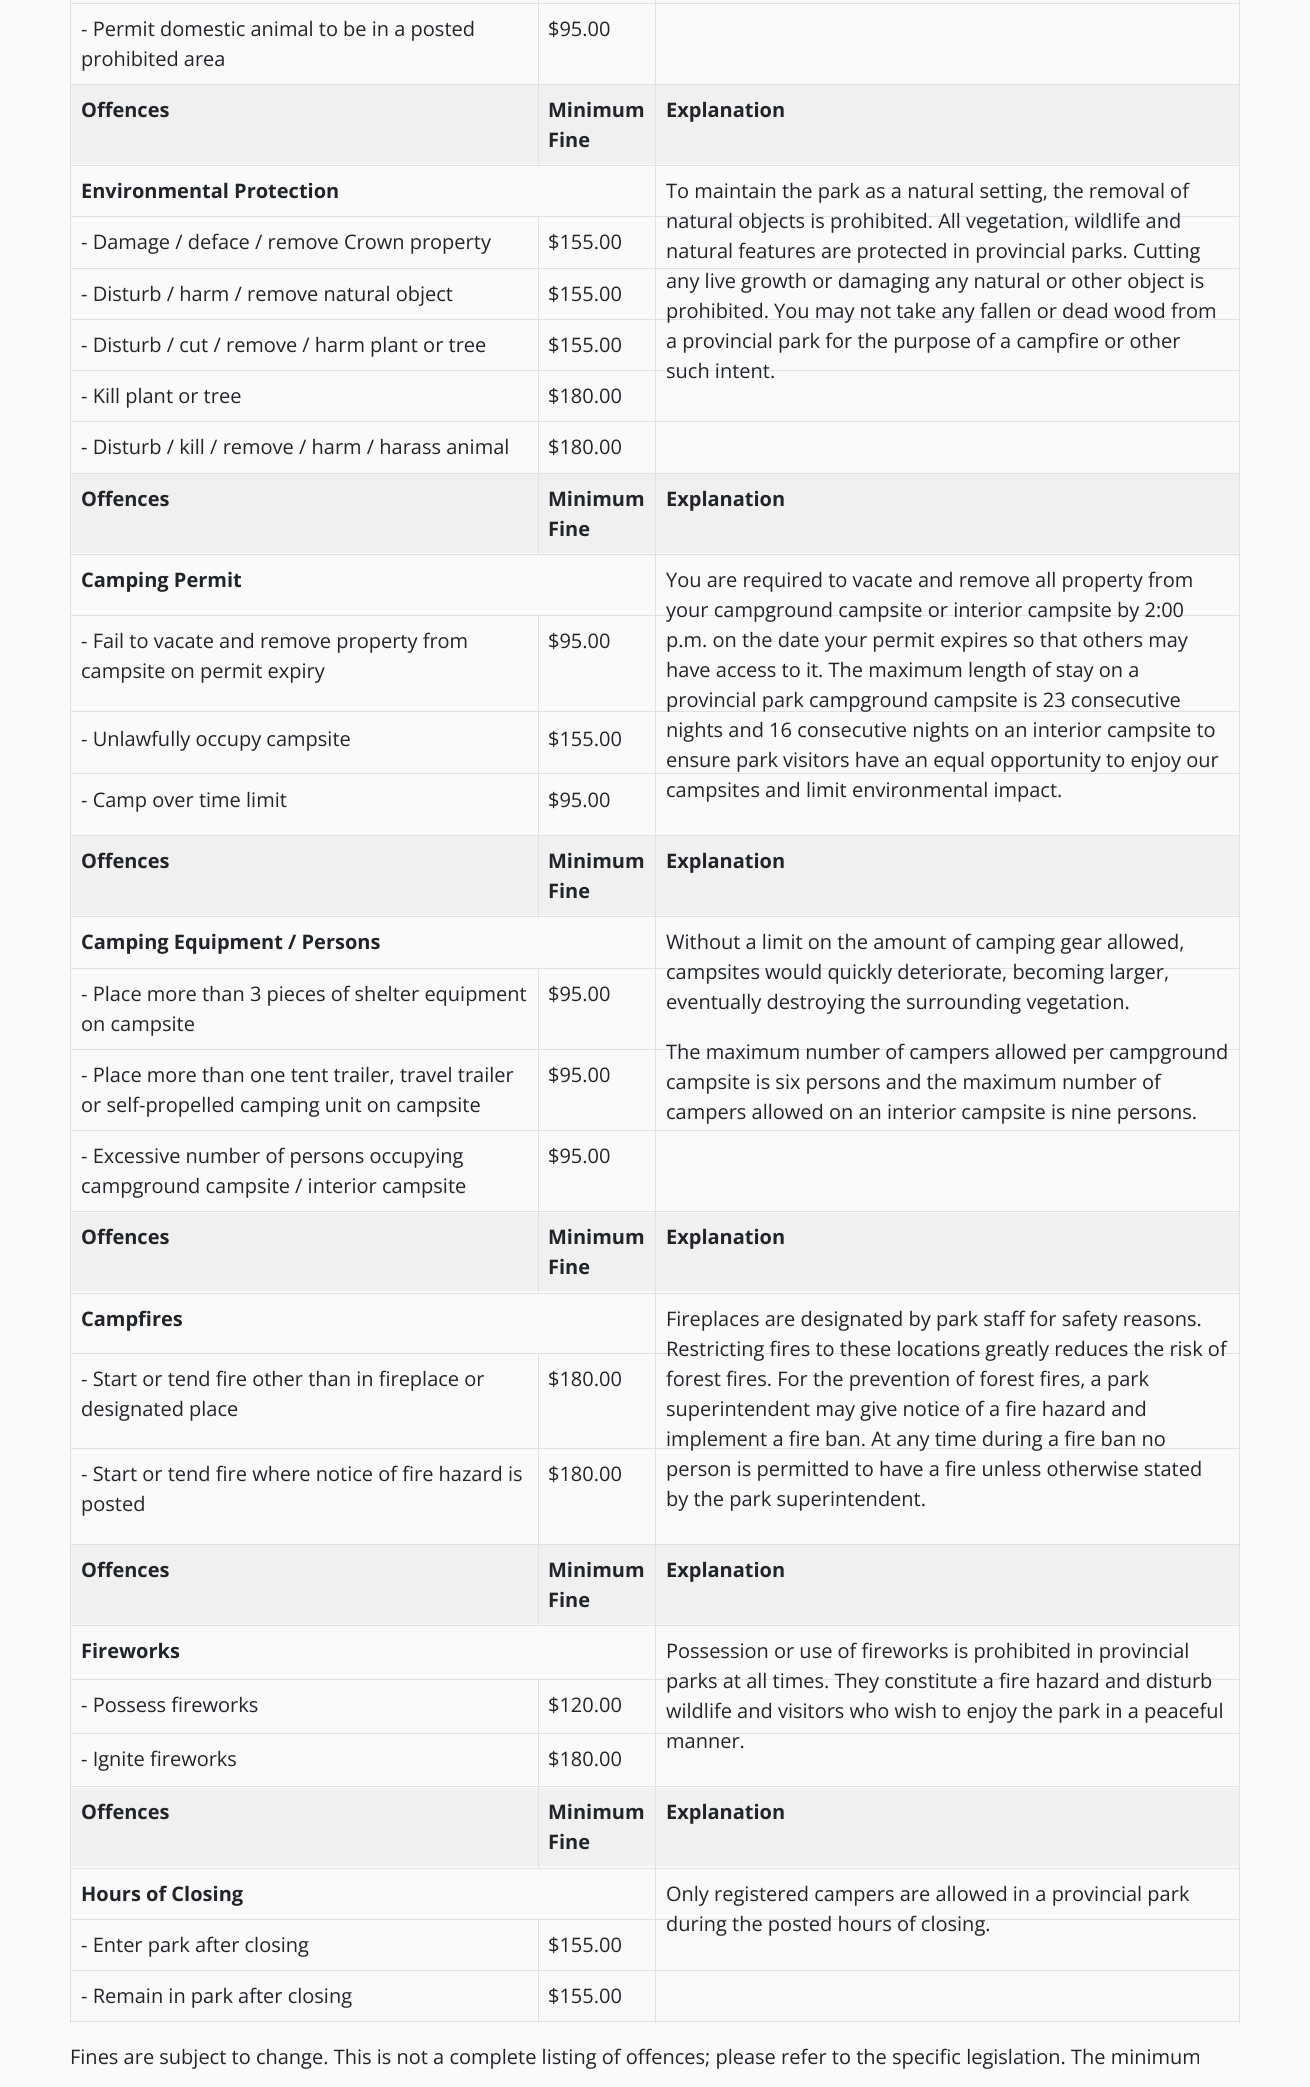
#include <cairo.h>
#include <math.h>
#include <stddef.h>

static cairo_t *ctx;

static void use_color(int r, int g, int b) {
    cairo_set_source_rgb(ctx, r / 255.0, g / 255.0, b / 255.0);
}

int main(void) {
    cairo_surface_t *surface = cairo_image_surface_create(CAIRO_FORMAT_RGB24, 1310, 2087);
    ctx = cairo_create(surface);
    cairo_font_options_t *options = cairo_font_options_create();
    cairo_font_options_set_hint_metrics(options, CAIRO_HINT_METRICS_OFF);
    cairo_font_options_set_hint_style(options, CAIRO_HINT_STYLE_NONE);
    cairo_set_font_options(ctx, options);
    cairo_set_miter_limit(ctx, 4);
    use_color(250, 250, 250);
    cairo_paint(ctx);
    use_color(222, 226, 230);
    cairo_rectangle(ctx, 70, 3, 1170, 1);
    cairo_fill(ctx);
    cairo_select_font_face(ctx, "Open Sans", CAIRO_FONT_SLANT_NORMAL, CAIRO_FONT_WEIGHT_NORMAL);
    cairo_set_font_size(ctx, 20);
    use_color(33, 37, 41);
    cairo_move_to(ctx, 81, 36);
    cairo_show_text(ctx, "- Permit domestic animal to be in a posted");
    cairo_move_to(ctx, 81, 66);
    cairo_show_text(ctx, "prohibited area");
    cairo_move_to(ctx, 548, 36);
    cairo_show_text(ctx, "$95.00");
    use_color(240, 240, 240);
    cairo_rectangle(ctx, 71, 85, 1168, 79);
    cairo_fill(ctx);
    use_color(222, 226, 230);
    cairo_rectangle(ctx, 70, 84, 1170, 1);
    cairo_fill(ctx);
    cairo_select_font_face(ctx, "Open Sans", CAIRO_FONT_SLANT_NORMAL, CAIRO_FONT_WEIGHT_BOLD);
    use_color(33, 37, 41);
    cairo_move_to(ctx, 81, 117);
    cairo_show_text(ctx, "Offences");
    use_color(222, 226, 230);
    cairo_rectangle(ctx, 70, 165, 1170, 1);
    cairo_fill(ctx);
    cairo_rectangle(ctx, 538, 0, 1, 166);
    cairo_fill(ctx);
    use_color(33, 37, 41);
    cairo_move_to(ctx, 548, 117);
    cairo_show_text(ctx, "Minimum");
    cairo_move_to(ctx, 548, 147);
    cairo_show_text(ctx, "Fine");
    cairo_move_to(ctx, 666, 117);
    cairo_show_text(ctx, "Explanation");
    cairo_move_to(ctx, 81, 198);
    cairo_show_text(ctx, "Environmental Protection");
    cairo_select_font_face(ctx, "Open Sans", CAIRO_FONT_SLANT_NORMAL, CAIRO_FONT_WEIGHT_NORMAL);
    cairo_move_to(ctx, 666, 198);
    cairo_show_text(ctx, "To maintain the park as a natural setting, the removal of");
    use_color(222, 226, 230);
    cairo_rectangle(ctx, 70, 216, 1170, 1);
    cairo_fill(ctx);
    use_color(33, 37, 41);
    cairo_move_to(ctx, 666, 228);
    cairo_show_text(ctx, "natural objects is prohibited. All vegetation, wildlife and");
    cairo_move_to(ctx, 666, 258);
    cairo_show_text(ctx, "natural features are protected in provincial parks. Cutting");
    cairo_move_to(ctx, 666, 288);
    cairo_show_text(ctx, "any live growth or damaging any natural or other object is");
    use_color(222, 226, 230);
    cairo_rectangle(ctx, 70, 319, 1170, 1);
    cairo_fill(ctx);
    use_color(33, 37, 41);
    cairo_move_to(ctx, 666, 318);
    cairo_show_text(ctx, "prohibited. You may not take any fallen or dead wood from");
    cairo_move_to(ctx, 666, 348);
    cairo_show_text(ctx, "a provincial park for the purpose of a campfire or other");
    use_color(222, 226, 230);
    cairo_rectangle(ctx, 70, 370, 1170, 1);
    cairo_fill(ctx);
    use_color(33, 37, 41);
    cairo_move_to(ctx, 666, 378);
    cairo_show_text(ctx, "such intent.");
    cairo_move_to(ctx, 81, 249);
    cairo_show_text(ctx, "- Damage / deface / remove Crown property");
    cairo_move_to(ctx, 548, 249);
    cairo_show_text(ctx, "$155.00");
    use_color(222, 226, 230);
    cairo_rectangle(ctx, 70, 268, 1170, 1);
    cairo_fill(ctx);
    use_color(33, 37, 41);
    cairo_move_to(ctx, 81, 301);
    cairo_show_text(ctx, "- Disturb / harm / remove natural object");
    cairo_move_to(ctx, 548, 301);
    cairo_show_text(ctx, "$155.00");
    cairo_move_to(ctx, 81, 352);
    cairo_show_text(ctx, "- Disturb / cut / remove / harm plant or tree");
    cairo_move_to(ctx, 548, 352);
    cairo_show_text(ctx, "$155.00");
    cairo_move_to(ctx, 81, 403);
    cairo_show_text(ctx, "- Kill plant or tree");
    cairo_move_to(ctx, 548, 403);
    cairo_show_text(ctx, "$180.00");
    use_color(222, 226, 230);
    cairo_rectangle(ctx, 70, 421, 1170, 1);
    cairo_fill(ctx);
    use_color(33, 37, 41);
    cairo_move_to(ctx, 81, 454);
    cairo_show_text(ctx, "- Disturb / kill / remove / harm / harass animal");
    cairo_move_to(ctx, 548, 454);
    cairo_show_text(ctx, "$180.00");
    use_color(240, 240, 240);
    cairo_rectangle(ctx, 71, 474, 1168, 79);
    cairo_fill(ctx);
    use_color(222, 226, 230);
    cairo_rectangle(ctx, 70, 473, 1170, 1);
    cairo_fill(ctx);
    cairo_select_font_face(ctx, "Open Sans", CAIRO_FONT_SLANT_NORMAL, CAIRO_FONT_WEIGHT_BOLD);
    use_color(33, 37, 41);
    cairo_move_to(ctx, 81, 506);
    cairo_show_text(ctx, "Offences");
    use_color(222, 226, 230);
    cairo_rectangle(ctx, 70, 554, 1170, 1);
    cairo_fill(ctx);
    cairo_rectangle(ctx, 538, 216, 1, 339);
    cairo_fill(ctx);
    use_color(33, 37, 41);
    cairo_move_to(ctx, 548, 506);
    cairo_show_text(ctx, "Minimum");
    cairo_move_to(ctx, 548, 536);
    cairo_show_text(ctx, "Fine");
    cairo_move_to(ctx, 666, 506);
    cairo_show_text(ctx, "Explanation");
    cairo_move_to(ctx, 81, 587);
    cairo_show_text(ctx, "Camping Permit");
    cairo_select_font_face(ctx, "Open Sans", CAIRO_FONT_SLANT_NORMAL, CAIRO_FONT_WEIGHT_NORMAL);
    cairo_move_to(ctx, 666, 587);
    cairo_show_text(ctx, "You are required to vacate and remove all property from");
    use_color(222, 226, 230);
    cairo_rectangle(ctx, 70, 615, 1170, 1);
    cairo_fill(ctx);
    use_color(33, 37, 41);
    cairo_move_to(ctx, 666, 617);
    cairo_show_text(ctx, "your campground campsite or interior campsite by 2:00");
    cairo_move_to(ctx, 666, 647);
    cairo_show_text(ctx, "p.m. on the date your permit expires so that others may");
    cairo_move_to(ctx, 666, 677);
    cairo_show_text(ctx, "have access to it. The maximum length of stay on a");
    use_color(222, 226, 230);
    cairo_rectangle(ctx, 70, 711, 1170, 1);
    cairo_fill(ctx);
    use_color(33, 37, 41);
    cairo_move_to(ctx, 666, 707);
    cairo_show_text(ctx, "provincial park campground campsite is 23 consecutive");
    cairo_move_to(ctx, 666, 737);
    cairo_show_text(ctx, "nights and 16 consecutive nights on an interior campsite to");
    cairo_move_to(ctx, 666, 767);
    cairo_show_text(ctx, "ensure park visitors have an equal opportunity to enjoy our");
    cairo_move_to(ctx, 666, 797);
    cairo_show_text(ctx, "campsites and limit environmental impact.");
    cairo_move_to(ctx, 81, 648);
    cairo_show_text(ctx, "- Fail to vacate and remove property from");
    cairo_move_to(ctx, 81, 678);
    cairo_show_text(ctx, "campsite on permit expiry");
    cairo_move_to(ctx, 548, 648);
    cairo_show_text(ctx, "$95.00");
    cairo_move_to(ctx, 81, 746);
    cairo_show_text(ctx, "- Unlawfully occupy campsite");
    cairo_move_to(ctx, 548, 746);
    cairo_show_text(ctx, "$155.00");
    use_color(222, 226, 230);
    cairo_rectangle(ctx, 70, 773, 1170, 1);
    cairo_fill(ctx);
    use_color(33, 37, 41);
    cairo_move_to(ctx, 81, 807);
    cairo_show_text(ctx, "- Camp over time limit");
    cairo_move_to(ctx, 548, 807);
    cairo_show_text(ctx, "$95.00");
    use_color(240, 240, 240);
    cairo_rectangle(ctx, 71, 836, 1168, 79);
    cairo_fill(ctx);
    use_color(222, 226, 230);
    cairo_rectangle(ctx, 70, 835, 1170, 1);
    cairo_fill(ctx);
    cairo_select_font_face(ctx, "Open Sans", CAIRO_FONT_SLANT_NORMAL, CAIRO_FONT_WEIGHT_BOLD);
    use_color(33, 37, 41);
    cairo_move_to(ctx, 81, 868);
    cairo_show_text(ctx, "Offences");
    use_color(222, 226, 230);
    cairo_rectangle(ctx, 70, 916, 1170, 1);
    cairo_fill(ctx);
    cairo_rectangle(ctx, 538, 615, 1, 303);
    cairo_fill(ctx);
    use_color(33, 37, 41);
    cairo_move_to(ctx, 548, 868);
    cairo_show_text(ctx, "Minimum");
    cairo_move_to(ctx, 548, 898);
    cairo_show_text(ctx, "Fine");
    cairo_move_to(ctx, 666, 868);
    cairo_show_text(ctx, "Explanation");
    cairo_move_to(ctx, 81, 949);
    cairo_show_text(ctx, "Camping Equipment / Persons");
    cairo_select_font_face(ctx, "Open Sans", CAIRO_FONT_SLANT_NORMAL, CAIRO_FONT_WEIGHT_NORMAL);
    cairo_move_to(ctx, 666, 949);
    cairo_show_text(ctx, "Without a limit on the amount of camping gear allowed,");
    use_color(222, 226, 230);
    cairo_rectangle(ctx, 70, 968, 1170, 1);
    cairo_fill(ctx);
    use_color(33, 37, 41);
    cairo_move_to(ctx, 666, 979);
    cairo_show_text(ctx, "campsites would quickly deteriorate, becoming larger,");
    cairo_move_to(ctx, 666, 1009);
    cairo_show_text(ctx, "eventually destroying the surrounding vegetation.");
    use_color(222, 226, 230);
    cairo_rectangle(ctx, 70, 1049, 1170, 1);
    cairo_fill(ctx);
    use_color(33, 37, 41);
    cairo_move_to(ctx, 666, 1059);
    cairo_show_text(ctx, "The maximum number of campers allowed per campground");
    cairo_move_to(ctx, 666, 1089);
    cairo_show_text(ctx, "campsite is six persons and the maximum number of");
    cairo_move_to(ctx, 666, 1119);
    cairo_show_text(ctx, "campers allowed on an interior campsite is nine persons.");
    cairo_move_to(ctx, 81, 1001);
    cairo_show_text(ctx, "- Place more than 3 pieces of shelter equipment");
    cairo_move_to(ctx, 81, 1031);
    cairo_show_text(ctx, "on campsite");
    cairo_move_to(ctx, 548, 1001);
    cairo_show_text(ctx, "$95.00");
    cairo_move_to(ctx, 81, 1082);
    cairo_show_text(ctx, "- Place more than one tent trailer, travel trailer");
    cairo_move_to(ctx, 81, 1112);
    cairo_show_text(ctx, "or self-propelled camping unit on campsite");
    cairo_move_to(ctx, 548, 1082);
    cairo_show_text(ctx, "$95.00");
    use_color(222, 226, 230);
    cairo_rectangle(ctx, 70, 1130, 1170, 1);
    cairo_fill(ctx);
    use_color(33, 37, 41);
    cairo_move_to(ctx, 81, 1163);
    cairo_show_text(ctx, "- Excessive number of persons occupying");
    cairo_move_to(ctx, 81, 1193);
    cairo_show_text(ctx, "campground campsite / interior campsite");
    cairo_move_to(ctx, 548, 1163);
    cairo_show_text(ctx, "$95.00");
    use_color(240, 240, 240);
    cairo_rectangle(ctx, 71, 1213, 1168, 78);
    cairo_fill(ctx);
    use_color(222, 226, 230);
    cairo_rectangle(ctx, 70, 1211, 1170, 1);
    cairo_fill(ctx);
    cairo_select_font_face(ctx, "Open Sans", CAIRO_FONT_SLANT_NORMAL, CAIRO_FONT_WEIGHT_BOLD);
    use_color(33, 37, 41);
    cairo_move_to(ctx, 81, 1244);
    cairo_show_text(ctx, "Offences");
    use_color(222, 226, 230);
    cairo_rectangle(ctx, 70, 1293, 1170, 1);
    cairo_fill(ctx);
    cairo_rectangle(ctx, 538, 968, 1, 326);
    cairo_fill(ctx);
    use_color(33, 37, 41);
    cairo_move_to(ctx, 548, 1244);
    cairo_show_text(ctx, "Minimum");
    cairo_move_to(ctx, 548, 1274);
    cairo_show_text(ctx, "Fine");
    cairo_move_to(ctx, 666, 1244);
    cairo_show_text(ctx, "Explanation");
    cairo_move_to(ctx, 81, 1326);
    cairo_show_text(ctx, "Campfires");
    cairo_select_font_face(ctx, "Open Sans", CAIRO_FONT_SLANT_NORMAL, CAIRO_FONT_WEIGHT_NORMAL);
    cairo_move_to(ctx, 666, 1326);
    cairo_show_text(ctx, "Fireplaces are designated by park staff for safety reasons.");
    use_color(222, 226, 230);
    cairo_rectangle(ctx, 70, 1353, 1170, 1);
    cairo_fill(ctx);
    use_color(33, 37, 41);
    cairo_move_to(ctx, 666, 1356);
    cairo_show_text(ctx, "Restricting fires to these locations greatly reduces the risk of");
    cairo_move_to(ctx, 666, 1386);
    cairo_show_text(ctx, "forest fires. For the prevention of forest fires, a park");
    cairo_move_to(ctx, 666, 1416);
    cairo_show_text(ctx, "superintendent may give notice of a fire hazard and");
    use_color(222, 226, 230);
    cairo_rectangle(ctx, 70, 1448, 1170, 1);
    cairo_fill(ctx);
    use_color(33, 37, 41);
    cairo_move_to(ctx, 666, 1446);
    cairo_show_text(ctx, "implement a fire ban. At any time during a fire ban no");
    cairo_move_to(ctx, 666, 1476);
    cairo_show_text(ctx, "person is permitted to have a fire unless otherwise stated");
    cairo_move_to(ctx, 666, 1506);
    cairo_show_text(ctx, "by the park superintendent.");
    cairo_move_to(ctx, 81, 1386);
    cairo_show_text(ctx, "- Start or tend fire other than in fireplace or");
    cairo_move_to(ctx, 81, 1416);
    cairo_show_text(ctx, "designated place");
    cairo_move_to(ctx, 548, 1386);
    cairo_show_text(ctx, "$180.00");
    cairo_move_to(ctx, 81, 1481);
    cairo_show_text(ctx, "- Start or tend fire where notice of fire hazard is");
    cairo_move_to(ctx, 81, 1511);
    cairo_show_text(ctx, "posted");
    cairo_move_to(ctx, 548, 1481);
    cairo_show_text(ctx, "$180.00");
    use_color(240, 240, 240);
    cairo_rectangle(ctx, 71, 1545, 1168, 79);
    cairo_fill(ctx);
    use_color(222, 226, 230);
    cairo_rectangle(ctx, 70, 1544, 1170, 1);
    cairo_fill(ctx);
    cairo_select_font_face(ctx, "Open Sans", CAIRO_FONT_SLANT_NORMAL, CAIRO_FONT_WEIGHT_BOLD);
    use_color(33, 37, 41);
    cairo_move_to(ctx, 81, 1577);
    cairo_show_text(ctx, "Offences");
    use_color(222, 226, 230);
    cairo_rectangle(ctx, 70, 1625, 1170, 1);
    cairo_fill(ctx);
    cairo_rectangle(ctx, 538, 1353, 1, 273);
    cairo_fill(ctx);
    use_color(33, 37, 41);
    cairo_move_to(ctx, 548, 1577);
    cairo_show_text(ctx, "Minimum");
    cairo_move_to(ctx, 548, 1607);
    cairo_show_text(ctx, "Fine");
    cairo_move_to(ctx, 666, 1577);
    cairo_show_text(ctx, "Explanation");
    cairo_move_to(ctx, 81, 1658);
    cairo_show_text(ctx, "Fireworks");
    cairo_select_font_face(ctx, "Open Sans", CAIRO_FONT_SLANT_NORMAL, CAIRO_FONT_WEIGHT_NORMAL);
    cairo_move_to(ctx, 666, 1658);
    cairo_show_text(ctx, "Possession or use of fireworks is prohibited in provincial");
    use_color(222, 226, 230);
    cairo_rectangle(ctx, 70, 1679, 1170, 1);
    cairo_fill(ctx);
    use_color(33, 37, 41);
    cairo_move_to(ctx, 666, 1688);
    cairo_show_text(ctx, "parks at all times. They constitute a fire hazard and disturb");
    cairo_move_to(ctx, 666, 1718);
    cairo_show_text(ctx, "wildlife and visitors who wish to enjoy the park in a peaceful");
    cairo_move_to(ctx, 666, 1748);
    cairo_show_text(ctx, "manner.");
    cairo_move_to(ctx, 81, 1712);
    cairo_show_text(ctx, "- Possess fireworks");
    cairo_move_to(ctx, 548, 1712);
    cairo_show_text(ctx, "$120.00");
    use_color(222, 226, 230);
    cairo_rectangle(ctx, 70, 1733, 1170, 1);
    cairo_fill(ctx);
    use_color(33, 37, 41);
    cairo_move_to(ctx, 81, 1766);
    cairo_show_text(ctx, "- Ignite fireworks");
    cairo_move_to(ctx, 548, 1766);
    cairo_show_text(ctx, "$180.00");
    use_color(240, 240, 240);
    cairo_rectangle(ctx, 71, 1788, 1168, 78);
    cairo_fill(ctx);
    use_color(222, 226, 230);
    cairo_rectangle(ctx, 70, 1786, 1170, 1);
    cairo_fill(ctx);
    cairo_select_font_face(ctx, "Open Sans", CAIRO_FONT_SLANT_NORMAL, CAIRO_FONT_WEIGHT_BOLD);
    use_color(33, 37, 41);
    cairo_move_to(ctx, 81, 1819);
    cairo_show_text(ctx, "Offences");
    use_color(222, 226, 230);
    cairo_rectangle(ctx, 70, 1868, 1170, 1);
    cairo_fill(ctx);
    cairo_rectangle(ctx, 538, 1679, 1, 190);
    cairo_fill(ctx);
    use_color(33, 37, 41);
    cairo_move_to(ctx, 548, 1819);
    cairo_show_text(ctx, "Minimum");
    cairo_move_to(ctx, 548, 1849);
    cairo_show_text(ctx, "Fine");
    cairo_move_to(ctx, 666, 1819);
    cairo_show_text(ctx, "Explanation");
    cairo_move_to(ctx, 81, 1901);
    cairo_show_text(ctx, "Hours of Closing");
    use_color(222, 226, 230);
    cairo_rectangle(ctx, 70, 1919, 1170, 1);
    cairo_fill(ctx);
    cairo_rectangle(ctx, 70, 1970, 1170, 1);
    cairo_fill(ctx);
    cairo_rectangle(ctx, 70, 2021, 1170, 1);
    cairo_fill(ctx);
    cairo_rectangle(ctx, 1239, 0, 1, 2023);
    cairo_fill(ctx);
    cairo_rectangle(ctx, 655, 0, 1, 2023);
    cairo_fill(ctx);
    cairo_select_font_face(ctx, "Open Sans", CAIRO_FONT_SLANT_NORMAL, CAIRO_FONT_WEIGHT_NORMAL);
    use_color(33, 37, 41);
    cairo_move_to(ctx, 666, 1901);
    cairo_show_text(ctx, "Only registered campers are allowed in a provincial park");
    cairo_move_to(ctx, 666, 1931);
    cairo_show_text(ctx, "during the posted hours of closing.");
    cairo_move_to(ctx, 81, 1952);
    cairo_show_text(ctx, "- Enter park after closing");
    cairo_move_to(ctx, 548, 1952);
    cairo_show_text(ctx, "$155.00");
    use_color(222, 226, 230);
    cairo_rectangle(ctx, 70, 0, 1, 2023);
    cairo_fill(ctx);
    use_color(33, 37, 41);
    cairo_move_to(ctx, 81, 2003);
    cairo_show_text(ctx, "- Remain in park after closing");
    use_color(222, 226, 230);
    cairo_rectangle(ctx, 538, 1919, 1, 104);
    cairo_fill(ctx);
    use_color(33, 37, 41);
    cairo_move_to(ctx, 548, 2003);
    cairo_show_text(ctx, "$155.00");
    cairo_move_to(ctx, 70, 2064);
    cairo_show_text(ctx, "Fines are subject to change. This is not a complete listing of offences; please refer to the specific legislation. The minimum");
    cairo_surface_write_to_png(surface, "result.png");
    cairo_font_options_destroy(options);
    cairo_destroy(ctx);
    cairo_surface_destroy(surface);
    return 0;
}
